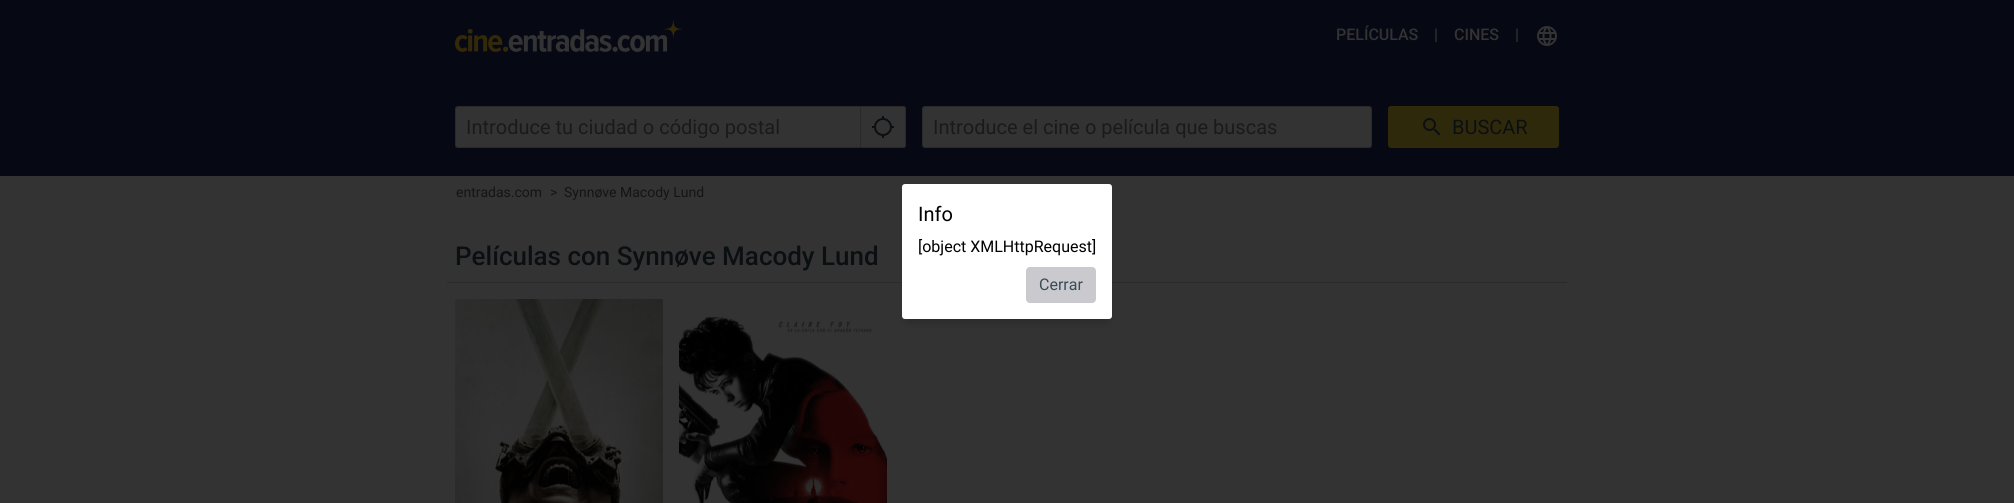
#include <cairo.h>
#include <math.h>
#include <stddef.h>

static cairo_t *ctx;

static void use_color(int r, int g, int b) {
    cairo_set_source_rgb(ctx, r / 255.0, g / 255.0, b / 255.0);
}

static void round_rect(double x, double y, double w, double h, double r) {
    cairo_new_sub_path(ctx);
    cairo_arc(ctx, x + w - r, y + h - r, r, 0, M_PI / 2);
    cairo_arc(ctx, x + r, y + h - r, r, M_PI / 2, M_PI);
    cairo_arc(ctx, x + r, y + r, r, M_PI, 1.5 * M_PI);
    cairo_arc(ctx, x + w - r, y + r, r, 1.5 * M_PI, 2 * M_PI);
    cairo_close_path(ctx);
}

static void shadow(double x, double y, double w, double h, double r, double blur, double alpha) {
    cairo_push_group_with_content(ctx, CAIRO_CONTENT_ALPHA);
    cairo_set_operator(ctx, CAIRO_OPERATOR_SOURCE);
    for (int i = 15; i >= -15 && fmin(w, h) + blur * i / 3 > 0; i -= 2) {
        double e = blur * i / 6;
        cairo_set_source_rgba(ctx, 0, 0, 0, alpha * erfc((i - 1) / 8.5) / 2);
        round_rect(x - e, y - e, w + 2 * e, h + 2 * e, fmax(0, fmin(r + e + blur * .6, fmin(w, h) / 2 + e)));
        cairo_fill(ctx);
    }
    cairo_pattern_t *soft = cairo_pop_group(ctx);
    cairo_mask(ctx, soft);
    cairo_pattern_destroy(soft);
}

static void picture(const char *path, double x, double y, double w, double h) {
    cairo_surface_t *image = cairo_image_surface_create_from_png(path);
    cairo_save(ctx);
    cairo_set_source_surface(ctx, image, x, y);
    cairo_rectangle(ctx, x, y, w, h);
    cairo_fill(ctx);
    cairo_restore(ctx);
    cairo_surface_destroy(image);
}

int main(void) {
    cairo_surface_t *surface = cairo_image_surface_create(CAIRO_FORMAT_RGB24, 2014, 503);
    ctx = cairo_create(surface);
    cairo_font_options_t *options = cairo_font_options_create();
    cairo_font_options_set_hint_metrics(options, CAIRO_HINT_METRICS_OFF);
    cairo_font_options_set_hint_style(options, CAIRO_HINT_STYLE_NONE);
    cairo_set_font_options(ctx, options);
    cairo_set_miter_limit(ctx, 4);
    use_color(51, 51, 51);
    cairo_paint(ctx);
    use_color(6, 8, 20);
    cairo_rectangle(ctx, 0, 0, 2014, 176);
    cairo_fill(ctx);
    picture("img1.png", 455, 20, 227, 32);
    cairo_select_font_face(ctx, "Roboto Medium", CAIRO_FONT_SLANT_NORMAL, CAIRO_FONT_WEIGHT_NORMAL);
    cairo_set_font_size(ctx, 16);
    use_color(51, 51, 51);
    cairo_move_to(ctx, 1336, 40);
    cairo_show_text(ctx, "PELÍCULAS");
    cairo_move_to(ctx, 1434, 40);
    cairo_show_text(ctx, "|");
    cairo_move_to(ctx, 1454, 40);
    cairo_show_text(ctx, "CINES");
    cairo_move_to(ctx, 1515, 40);
    cairo_show_text(ctx, "|");
    picture("img2.png", 1537, 26, 20, 20);
    cairo_new_path(ctx);
    cairo_move_to(ctx, 458, 106.5);
    cairo_line_to(ctx, 860.5, 106.5);
    cairo_line_to(ctx, 860.5, 147.5);
    cairo_line_to(ctx, 458, 147.5);
    cairo_curve_to(ctx, 456.5, 147.5, 455.5, 146.5, 455.5, 145);
    cairo_line_to(ctx, 455.5, 109);
    cairo_curve_to(ctx, 455.5, 107.5, 456.5, 106.5, 458, 106.5);
    cairo_close_path(ctx);
    cairo_fill_preserve(ctx);
    use_color(41, 41, 41);
    cairo_set_line_width(ctx, 1);
    cairo_stroke(ctx);
    cairo_select_font_face(ctx, "Roboto", CAIRO_FONT_SLANT_NORMAL, CAIRO_FONT_WEIGHT_NORMAL);
    cairo_set_font_size(ctx, 20);
    use_color(26, 26, 26);
    cairo_move_to(ctx, 466, 134);
    cairo_show_text(ctx, "Introduce tu ciudad o código postal");
    use_color(51, 51, 51);
    cairo_new_path(ctx);
    cairo_move_to(ctx, 861, 106);
    cairo_line_to(ctx, 903, 106);
    cairo_curve_to(ctx, 904.5, 106, 906, 107.5, 906, 109);
    cairo_line_to(ctx, 906, 145);
    cairo_curve_to(ctx, 906, 146.5, 904.5, 148, 903, 148);
    cairo_line_to(ctx, 861, 148);
    cairo_close_path(ctx);
    cairo_fill(ctx);
    use_color(41, 41, 41);
    cairo_set_fill_rule(ctx, CAIRO_FILL_RULE_EVEN_ODD);
    cairo_new_path(ctx);
    cairo_move_to(ctx, 861, 106);
    cairo_line_to(ctx, 903, 106);
    cairo_curve_to(ctx, 905, 106, 906, 107, 906, 109);
    cairo_line_to(ctx, 906, 145);
    cairo_curve_to(ctx, 906, 147, 905, 148, 903, 148);
    cairo_line_to(ctx, 861, 148);
    cairo_close_path(ctx);
    cairo_move_to(ctx, 861, 107);
    cairo_line_to(ctx, 903, 107);
    cairo_curve_to(ctx, 904, 107, 905, 108, 905, 109);
    cairo_line_to(ctx, 905, 145);
    cairo_curve_to(ctx, 905, 146, 904, 147, 903, 147);
    cairo_line_to(ctx, 861, 147);
    cairo_close_path(ctx);
    cairo_fill(ctx);
    picture("img3.png", 872, 116, 22, 22);
    use_color(51, 51, 51);
    round_rect(922.5, 106.5, 449, 41, 2.5);
    cairo_fill_preserve(ctx);
    use_color(41, 41, 41);
    cairo_stroke(ctx);
    use_color(26, 26, 26);
    cairo_move_to(ctx, 933, 134);
    cairo_show_text(ctx, "Introduce el cine o película que buscas");
    use_color(47, 41, 12);
    round_rect(1388.5, 106.5, 170, 41, 2.5);
    cairo_fill_preserve(ctx);
    cairo_stroke(ctx);
    picture("img4.png", 1423, 118, 18, 18);
    use_color(11, 15, 17);
    cairo_move_to(ctx, 1452, 134);
    cairo_show_text(ctx, "BUSCAR");
    cairo_set_font_size(ctx, 14);
    use_color(20, 20, 20);
    cairo_move_to(ctx, 456, 197);
    cairo_show_text(ctx, "entradas.com");
    cairo_move_to(ctx, 550, 197);
    cairo_show_text(ctx, ">");
    cairo_move_to(ctx, 564, 197);
    cairo_show_text(ctx, "Synnøve Macody Lund");
    use_color(42, 42, 43);
    cairo_rectangle(ctx, 447, 282, 1120, 1);
    cairo_fill(ctx);
    cairo_select_font_face(ctx, "Roboto Medium", CAIRO_FONT_SLANT_NORMAL, CAIRO_FONT_WEIGHT_NORMAL);
    cairo_set_font_size(ctx, 26);
    use_color(11, 15, 17);
    cairo_move_to(ctx, 455, 265);
    cairo_show_text(ctx, "Películas con Synnøve Macody Lund");
    picture("img5.png", 455, 299, 208, 204);
    picture("img6.png", 679, 299, 208, 204);
    use_color(0, 0, 0);
    shadow(907, 197, 200, 125, 0, 4.5, 0.2);
    use_color(255, 255, 255);
    round_rect(902, 184, 210, 135, 3);
    cairo_fill(ctx);
    cairo_select_font_face(ctx, "Roboto", CAIRO_FONT_SLANT_NORMAL, CAIRO_FONT_WEIGHT_NORMAL);
    cairo_set_font_size(ctx, 20);
    use_color(0, 0, 0);
    cairo_move_to(ctx, 918, 221);
    cairo_show_text(ctx, "Info");
    cairo_set_font_size(ctx, 16);
    cairo_move_to(ctx, 918, 252);
    cairo_show_text(ctx, "[object XMLHttpRequest]");
    use_color(202, 202, 206);
    round_rect(1026.5, 267.5, 69, 35, 3.5);
    cairo_fill_preserve(ctx);
    cairo_stroke(ctx);
    use_color(56, 75, 86);
    cairo_move_to(ctx, 1039, 290);
    cairo_show_text(ctx, "Cerrar");
    cairo_surface_write_to_png(surface, "result.png");
    cairo_font_options_destroy(options);
    cairo_destroy(ctx);
    cairo_surface_destroy(surface);
    return 0;
}
